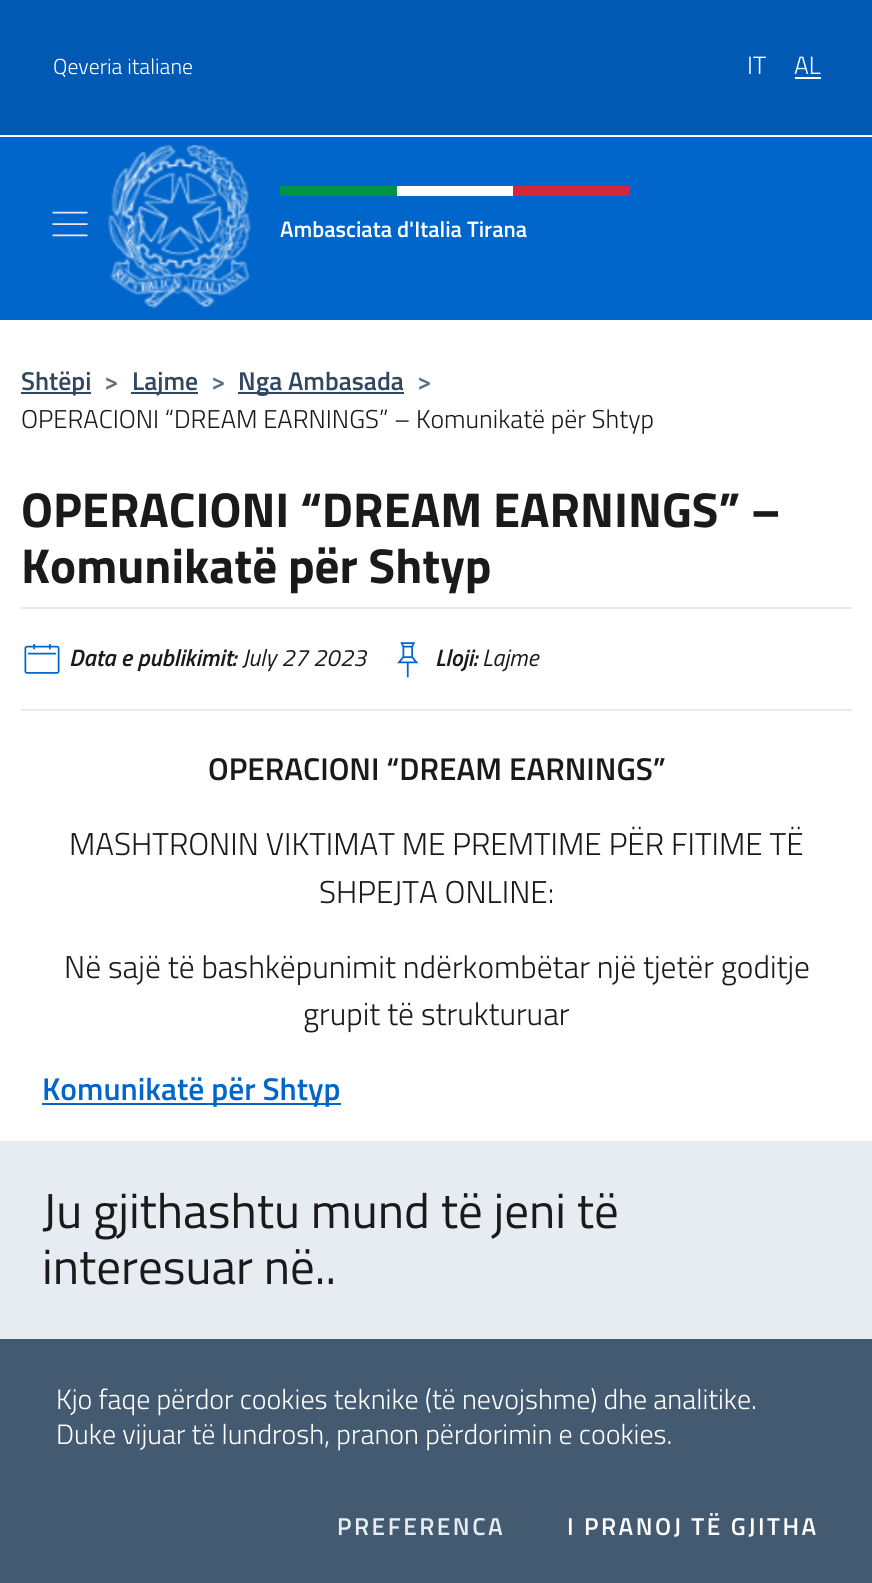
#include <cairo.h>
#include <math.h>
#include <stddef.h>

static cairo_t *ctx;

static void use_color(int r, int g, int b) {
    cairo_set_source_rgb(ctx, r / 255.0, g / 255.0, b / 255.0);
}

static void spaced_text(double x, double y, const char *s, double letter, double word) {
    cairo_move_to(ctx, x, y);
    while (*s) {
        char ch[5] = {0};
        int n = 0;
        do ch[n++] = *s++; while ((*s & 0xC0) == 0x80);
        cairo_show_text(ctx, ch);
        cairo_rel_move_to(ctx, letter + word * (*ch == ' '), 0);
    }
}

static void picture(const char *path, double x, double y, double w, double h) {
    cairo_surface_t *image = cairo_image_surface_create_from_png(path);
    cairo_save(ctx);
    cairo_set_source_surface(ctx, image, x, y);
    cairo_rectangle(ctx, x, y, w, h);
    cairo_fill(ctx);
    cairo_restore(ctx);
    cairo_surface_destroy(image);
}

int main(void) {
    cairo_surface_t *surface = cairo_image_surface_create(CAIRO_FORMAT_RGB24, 872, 1583);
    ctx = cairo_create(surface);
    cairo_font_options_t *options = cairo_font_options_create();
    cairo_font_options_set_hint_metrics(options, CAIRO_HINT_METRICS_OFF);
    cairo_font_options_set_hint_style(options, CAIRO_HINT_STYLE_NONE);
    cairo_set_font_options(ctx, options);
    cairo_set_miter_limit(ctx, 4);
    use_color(255, 255, 255);
    cairo_paint(ctx);
    use_color(0, 89, 179);
    cairo_rectangle(ctx, 0, 0, 872, 135);
    cairo_fill(ctx);
    cairo_select_font_face(ctx, "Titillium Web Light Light", CAIRO_FONT_SLANT_NORMAL, CAIRO_FONT_WEIGHT_NORMAL);
    cairo_set_font_size(ctx, 21.75);
    use_color(255, 255, 255);
    cairo_move_to(ctx, 53, 74);
    cairo_show_text(ctx, "Qeveria italiane");
    cairo_set_font_size(ctx, 25);
    cairo_move_to(ctx, 747, 74);
    cairo_show_text(ctx, "IT");
    cairo_move_to(ctx, 794, 74);
    cairo_show_text(ctx, "AL");
    cairo_rectangle(ctx, 795, 77, 26, 2);
    cairo_fill(ctx);
    use_color(0, 102, 204);
    cairo_rectangle(ctx, 0, 137, 872, 183);
    cairo_fill(ctx);
    picture("img1.png", 52, 211, 36, 26);
    picture("img2.png", 108, 145, 143, 164);
    use_color(0, 146, 70);
    cairo_rectangle(ctx, 280, 186, 117, 10);
    cairo_fill(ctx);
    use_color(255, 255, 255);
    cairo_rectangle(ctx, 397, 186, 116, 10);
    cairo_fill(ctx);
    use_color(206, 43, 55);
    cairo_rectangle(ctx, 513, 186, 117, 10);
    cairo_fill(ctx);
    cairo_select_font_face(ctx, "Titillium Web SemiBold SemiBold", CAIRO_FONT_SLANT_NORMAL, CAIRO_FONT_WEIGHT_NORMAL);
    cairo_set_font_size(ctx, 22.4);
    use_color(255, 255, 255);
    cairo_move_to(ctx, 280, 237);
    cairo_show_text(ctx, "Ambasciata d'Italia Tirana");
    use_color(48, 71, 95);
    cairo_rectangle(ctx, 21, 392, 70, 2);
    cairo_fill(ctx);
    cairo_set_font_size(ctx, 25.75);
    cairo_move_to(ctx, 21, 390);
    cairo_show_text(ctx, "Shtëpi");
    use_color(93, 112, 131);
    cairo_move_to(ctx, 104, 390);
    cairo_show_text(ctx, ">");
    use_color(48, 71, 95);
    cairo_rectangle(ctx, 131, 392, 67, 2);
    cairo_fill(ctx);
    cairo_move_to(ctx, 132, 390);
    cairo_show_text(ctx, "Lajme");
    use_color(93, 112, 131);
    cairo_move_to(ctx, 211, 390);
    cairo_show_text(ctx, ">");
    use_color(48, 71, 95);
    cairo_rectangle(ctx, 238, 392, 166, 2);
    cairo_fill(ctx);
    cairo_move_to(ctx, 238, 390);
    cairo_show_text(ctx, "Nga Ambasada");
    use_color(93, 112, 131);
    cairo_move_to(ctx, 417, 390);
    cairo_show_text(ctx, ">");
    cairo_select_font_face(ctx, "Titillium Web Light Light", CAIRO_FONT_SLANT_NORMAL, CAIRO_FONT_WEIGHT_NORMAL);
    use_color(26, 26, 26);
    cairo_move_to(ctx, 21, 428);
    cairo_show_text(ctx, "OPERACIONI “DREAM EARNINGS” – Komunikatë për Shtyp");
    cairo_select_font_face(ctx, "Titillium Web", CAIRO_FONT_SLANT_NORMAL, CAIRO_FONT_WEIGHT_BOLD);
    cairo_set_font_size(ctx, 49);
    cairo_move_to(ctx, 21, 527);
    cairo_show_text(ctx, "OPERACIONI “DREAM EARNINGS” –");
    cairo_move_to(ctx, 21, 583);
    cairo_show_text(ctx, "Komunikatë për Shtyp");
    use_color(234, 234, 234);
    cairo_rectangle(ctx, 21, 607, 831, 2);
    cairo_fill(ctx);
    cairo_rectangle(ctx, 21, 709, 831, 2);
    cairo_fill(ctx);
    picture("img3.png", 24, 644, 36, 30);
    cairo_select_font_face(ctx, "Titillium Web SemiBold SemiBold", CAIRO_FONT_SLANT_ITALIC, CAIRO_FONT_WEIGHT_NORMAL);
    cairo_set_font_size(ctx, 23.75);
    use_color(26, 26, 26);
    cairo_move_to(ctx, 69, 666);
    cairo_show_text(ctx, "Data e publikimit:");
    cairo_select_font_face(ctx, "Titillium Web", CAIRO_FONT_SLANT_ITALIC, CAIRO_FONT_WEIGHT_NORMAL);
    cairo_move_to(ctx, 242, 666);
    cairo_show_text(ctx, "July 27 2023");
    picture("img4.png", 397, 642, 22, 36);
    cairo_select_font_face(ctx, "Titillium Web SemiBold SemiBold", CAIRO_FONT_SLANT_ITALIC, CAIRO_FONT_WEIGHT_NORMAL);
    cairo_move_to(ctx, 435, 666);
    cairo_show_text(ctx, "Lloji:");
    cairo_select_font_face(ctx, "Titillium Web", CAIRO_FONT_SLANT_ITALIC, CAIRO_FONT_WEIGHT_NORMAL);
    cairo_move_to(ctx, 482, 666);
    cairo_show_text(ctx, "Lajme");
    cairo_select_font_face(ctx, "Titillium Web SemiBold SemiBold", CAIRO_FONT_SLANT_NORMAL, CAIRO_FONT_WEIGHT_NORMAL);
    cairo_set_font_size(ctx, 31.5);
    cairo_move_to(ctx, 208, 780);
    cairo_show_text(ctx, "OPERACIONI “DREAM EARNINGS”");
    cairo_select_font_face(ctx, "Titillium Web Light Light", CAIRO_FONT_SLANT_NORMAL, CAIRO_FONT_WEIGHT_NORMAL);
    cairo_move_to(ctx, 69, 855);
    cairo_show_text(ctx, "MASHTRONIN VIKTIMAT ME PREMTIME PËR FITIME TË");
    cairo_move_to(ctx, 319, 903);
    cairo_show_text(ctx, "SHPEJTA ONLINE:");
    cairo_move_to(ctx, 64, 978);
    cairo_show_text(ctx, "Në sajë të bashkëpunimit ndërkombëtar një tjetër goditje");
    cairo_move_to(ctx, 303, 1025);
    cairo_show_text(ctx, "grupit të strukturuar");
    use_color(0, 102, 204);
    cairo_rectangle(ctx, 42, 1103, 299, 2);
    cairo_fill(ctx);
    cairo_select_font_face(ctx, "Titillium Web SemiBold SemiBold", CAIRO_FONT_SLANT_NORMAL, CAIRO_FONT_WEIGHT_NORMAL);
    cairo_move_to(ctx, 42, 1100);
    cairo_show_text(ctx, "Komunikatë për Shtyp");
    use_color(230, 236, 242);
    cairo_rectangle(ctx, 0, 1141, 872, 198);
    cairo_fill(ctx);
    cairo_select_font_face(ctx, "Titillium Web", CAIRO_FONT_SLANT_NORMAL, CAIRO_FONT_WEIGHT_NORMAL);
    cairo_set_font_size(ctx, 49);
    use_color(26, 26, 26);
    cairo_move_to(ctx, 42, 1228);
    cairo_show_text(ctx, "Ju gjithashtu mund të jeni të");
    cairo_move_to(ctx, 42, 1284);
    cairo_show_text(ctx, "interesuar në..");
    use_color(67, 90, 112);
    cairo_rectangle(ctx, 0, 1339, 872, 244);
    cairo_fill(ctx);
    cairo_select_font_face(ctx, "Titillium Web Light Light", CAIRO_FONT_SLANT_NORMAL, CAIRO_FONT_WEIGHT_NORMAL);
    cairo_set_font_size(ctx, 28);
    use_color(255, 255, 255);
    cairo_move_to(ctx, 56, 1409);
    cairo_show_text(ctx, "Kjo faqe përdor cookies teknike (të nevojshme) dhe analitike.");
    cairo_move_to(ctx, 56, 1444);
    cairo_show_text(ctx, "Duke vijuar të lundrosh, pranon përdorimin e cookies.");
    cairo_select_font_face(ctx, "Titillium Web SemiBold SemiBold", CAIRO_FONT_SLANT_NORMAL, CAIRO_FONT_WEIGHT_NORMAL);
    cairo_set_font_size(ctx, 24.5);
    use_color(230, 236, 242);
    spaced_text(337, 1535, "PREFERENCA", 2.5, 0);
    use_color(255, 255, 255);
    spaced_text(567, 1535, "I PRANOJ TË GJITHA", 2.5, 0);
    cairo_surface_write_to_png(surface, "result.png");
    cairo_font_options_destroy(options);
    cairo_destroy(ctx);
    cairo_surface_destroy(surface);
    return 0;
}
